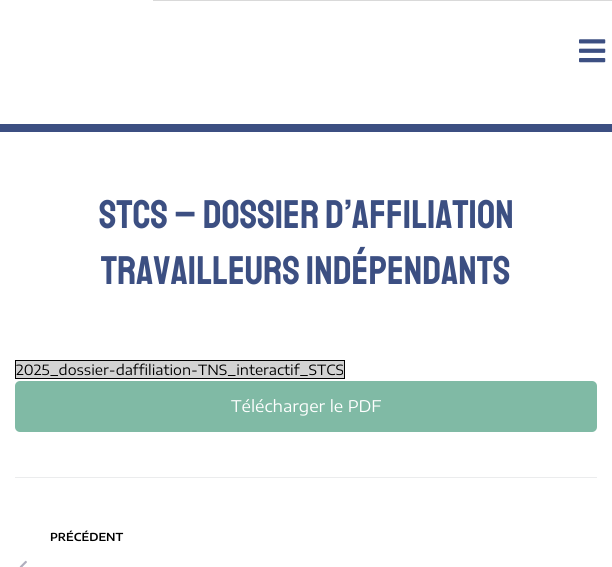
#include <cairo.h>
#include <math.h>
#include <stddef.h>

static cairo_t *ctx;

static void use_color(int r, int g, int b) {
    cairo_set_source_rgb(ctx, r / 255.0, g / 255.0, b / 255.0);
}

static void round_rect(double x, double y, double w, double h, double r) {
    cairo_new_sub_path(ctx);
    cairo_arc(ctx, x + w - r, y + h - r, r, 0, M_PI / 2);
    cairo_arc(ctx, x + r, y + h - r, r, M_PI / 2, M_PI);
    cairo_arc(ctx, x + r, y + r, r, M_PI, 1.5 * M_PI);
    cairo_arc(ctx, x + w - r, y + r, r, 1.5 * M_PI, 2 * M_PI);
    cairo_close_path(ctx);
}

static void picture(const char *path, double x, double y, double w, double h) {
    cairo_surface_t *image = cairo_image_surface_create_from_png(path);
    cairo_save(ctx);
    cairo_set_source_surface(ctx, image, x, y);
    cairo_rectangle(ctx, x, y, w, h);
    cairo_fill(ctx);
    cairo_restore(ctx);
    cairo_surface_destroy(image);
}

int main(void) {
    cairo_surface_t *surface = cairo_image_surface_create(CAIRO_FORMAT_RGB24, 612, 567);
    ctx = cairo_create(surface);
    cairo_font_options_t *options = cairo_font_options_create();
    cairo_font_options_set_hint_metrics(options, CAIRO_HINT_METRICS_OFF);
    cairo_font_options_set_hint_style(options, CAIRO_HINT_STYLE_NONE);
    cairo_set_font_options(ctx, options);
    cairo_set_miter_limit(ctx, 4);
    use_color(255, 255, 255);
    cairo_paint(ctx);
    use_color(217, 217, 217);
    cairo_rectangle(ctx, 153, 0, 459, 1);
    cairo_fill(ctx);
    picture("img1.png", 579, 39, 27, 24);
    use_color(60, 79, 130);
    cairo_rectangle(ctx, 0, 124, 612, 8);
    cairo_fill(ctx);
    use_color(235, 236, 237);
    cairo_rectangle(ctx, 15, 477, 582, 1);
    cairo_fill(ctx);
    cairo_select_font_face(ctx, "Staatliches", CAIRO_FONT_SLANT_NORMAL, CAIRO_FONT_WEIGHT_NORMAL);
    cairo_set_font_size(ctx, 40);
    use_color(60, 79, 130);
    cairo_move_to(ctx, 99, 228);
    cairo_show_text(ctx, "STCS – Dossier d’affiliation");
    cairo_move_to(ctx, 101, 284);
    cairo_show_text(ctx, "travailleurs indépendants");
    use_color(211, 211, 211);
    cairo_rectangle(ctx, 15.5, 360.5, 329, 18);
    cairo_fill_preserve(ctx);
    use_color(0, 0, 0);
    cairo_set_line_width(ctx, 1);
    cairo_stroke(ctx);
    cairo_select_font_face(ctx, "Encode Sans Expanded", CAIRO_FONT_SLANT_NORMAL, CAIRO_FONT_WEIGHT_NORMAL);
    cairo_set_font_size(ctx, 14);
    cairo_move_to(ctx, 16, 375);
    cairo_show_text(ctx, "2025_dossier-daffiliation-TNS_interactif_STCS");
    use_color(128, 186, 165);
    round_rect(15, 381, 582, 51, 5);
    cairo_fill(ctx);
    cairo_set_font_size(ctx, 16);
    use_color(255, 255, 255);
    cairo_move_to(ctx, 231, 412);
    cairo_show_text(ctx, "Télécharger le PDF");
    cairo_select_font_face(ctx, "Encode Sans Expanded SemiBold", CAIRO_FONT_SLANT_NORMAL, CAIRO_FONT_WEIGHT_NORMAL);
    cairo_set_font_size(ctx, 11);
    use_color(0, 0, 0);
    cairo_move_to(ctx, 50, 541);
    cairo_show_text(ctx, "PRÉCÉDENT");
    picture("img2.png", 19, 560, 8, 7);
    cairo_surface_write_to_png(surface, "result.png");
    cairo_font_options_destroy(options);
    cairo_destroy(ctx);
    cairo_surface_destroy(surface);
    return 0;
}
